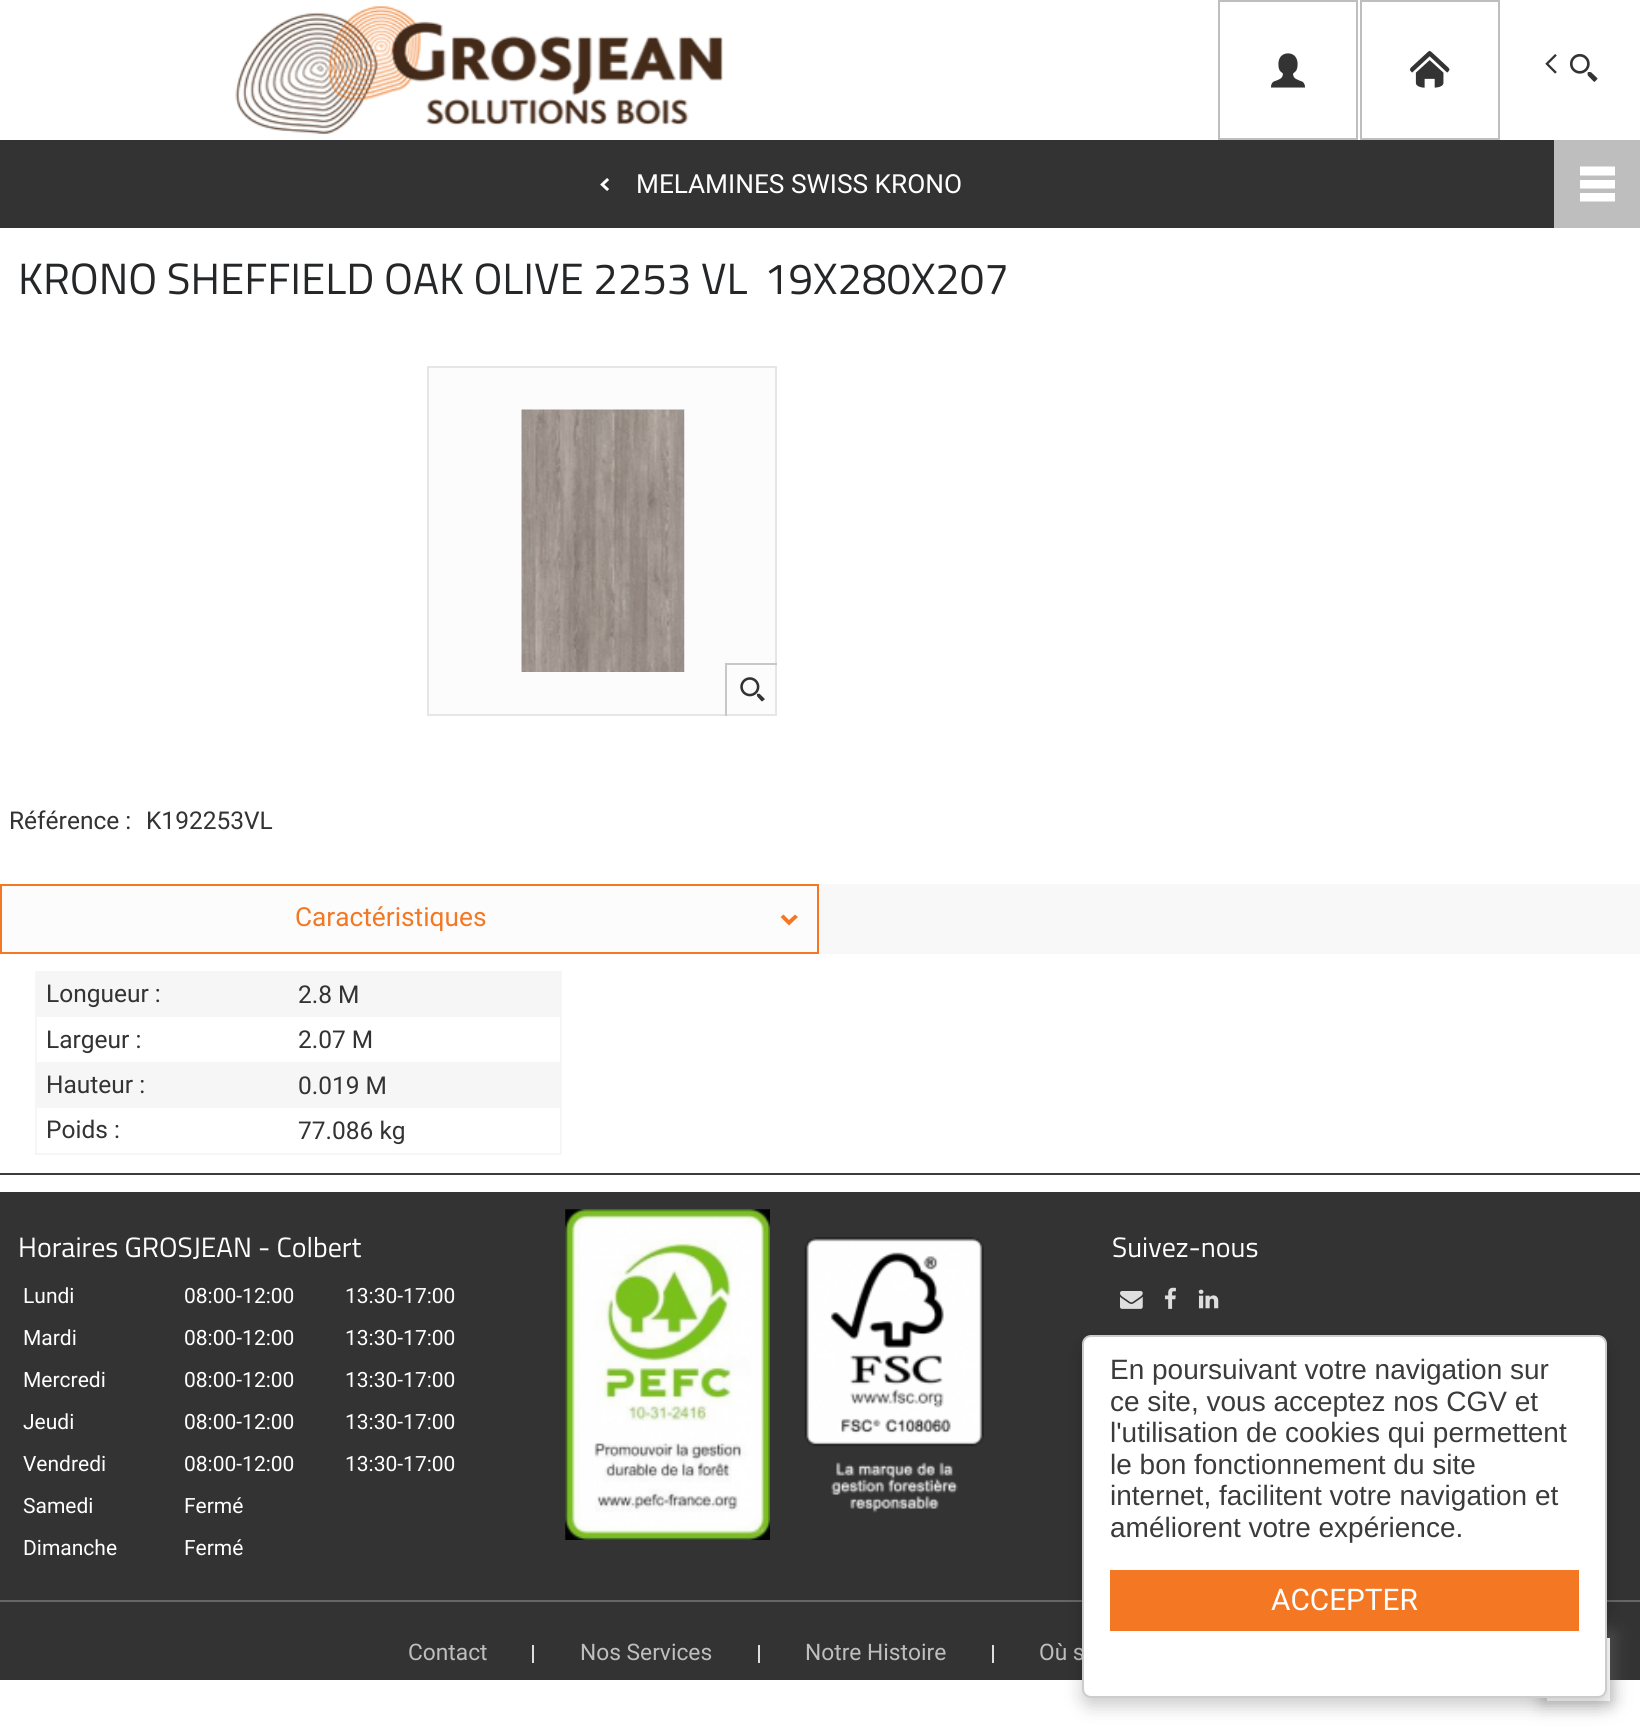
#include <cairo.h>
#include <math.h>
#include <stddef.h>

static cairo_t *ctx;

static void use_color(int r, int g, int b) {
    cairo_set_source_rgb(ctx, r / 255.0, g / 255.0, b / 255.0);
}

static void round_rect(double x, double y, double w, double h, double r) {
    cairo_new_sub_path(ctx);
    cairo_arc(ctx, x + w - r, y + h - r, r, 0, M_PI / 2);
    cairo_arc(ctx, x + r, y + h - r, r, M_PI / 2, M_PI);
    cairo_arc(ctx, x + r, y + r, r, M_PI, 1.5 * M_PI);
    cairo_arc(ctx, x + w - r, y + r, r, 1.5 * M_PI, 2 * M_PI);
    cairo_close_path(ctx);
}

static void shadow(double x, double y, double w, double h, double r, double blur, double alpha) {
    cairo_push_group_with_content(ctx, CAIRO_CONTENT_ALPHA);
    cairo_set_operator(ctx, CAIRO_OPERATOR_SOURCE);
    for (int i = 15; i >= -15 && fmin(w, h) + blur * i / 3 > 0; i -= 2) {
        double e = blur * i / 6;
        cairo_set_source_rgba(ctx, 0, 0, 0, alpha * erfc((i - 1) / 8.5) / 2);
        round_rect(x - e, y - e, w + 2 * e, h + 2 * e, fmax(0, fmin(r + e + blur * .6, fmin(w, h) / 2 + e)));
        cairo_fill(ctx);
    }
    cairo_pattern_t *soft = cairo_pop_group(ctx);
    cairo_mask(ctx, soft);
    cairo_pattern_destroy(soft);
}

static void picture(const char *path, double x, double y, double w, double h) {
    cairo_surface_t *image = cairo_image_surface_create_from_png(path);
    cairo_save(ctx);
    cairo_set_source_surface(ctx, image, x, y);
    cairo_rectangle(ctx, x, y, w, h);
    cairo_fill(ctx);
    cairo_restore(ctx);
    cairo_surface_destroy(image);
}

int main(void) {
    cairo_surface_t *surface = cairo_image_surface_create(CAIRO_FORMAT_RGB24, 1640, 1731);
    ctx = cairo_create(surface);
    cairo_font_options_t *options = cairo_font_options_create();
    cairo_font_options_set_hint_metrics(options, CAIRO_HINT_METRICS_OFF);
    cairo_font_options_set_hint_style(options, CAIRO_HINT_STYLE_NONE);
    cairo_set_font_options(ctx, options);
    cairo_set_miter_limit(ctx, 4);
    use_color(255, 255, 255);
    cairo_paint(ctx);
    picture("img1.png", 235, 6, 488, 128);
    cairo_rectangle(ctx, 1219, 1, 138, 138);
    use_color(190, 190, 191);
    cairo_stroke(ctx);
    picture("img2.png", 1271, 53, 34, 35);
    cairo_rectangle(ctx, 1361, 1, 138, 138);
    cairo_stroke(ctx);
    picture("img3.png", 1410, 50, 40, 38);
    picture("img4.png", 1545, 53, 53, 29);
    use_color(51, 51, 51);
    cairo_rectangle(ctx, 0, 140, 1554, 88);
    cairo_fill(ctx);
    picture("img5.png", 600, 178, 9, 13);
    cairo_select_font_face(ctx, "Roboto", CAIRO_FONT_SLANT_NORMAL, CAIRO_FONT_WEIGHT_NORMAL);
    cairo_set_font_size(ctx, 26.25);
    use_color(255, 255, 255);
    cairo_move_to(ctx, 636, 193);
    cairo_show_text(ctx, "MELAMINES SWISS KRONO");
    use_color(190, 190, 191);
    cairo_rectangle(ctx, 1554, 140, 86, 88);
    cairo_fill(ctx);
    use_color(255, 255, 255);
    cairo_new_path(ctx);
    cairo_move_to(ctx, 1580, 166.5);
    cairo_line_to(ctx, 1615, 166.5);
    cairo_line_to(ctx, 1615, 175.5);
    cairo_line_to(ctx, 1580, 175.5);
    cairo_close_path(ctx);
    cairo_move_to(ctx, 1580, 180);
    cairo_line_to(ctx, 1615, 180);
    cairo_line_to(ctx, 1615, 188.5);
    cairo_line_to(ctx, 1580, 188.5);
    cairo_close_path(ctx);
    cairo_move_to(ctx, 1580, 201.5);
    cairo_line_to(ctx, 1580, 193);
    cairo_line_to(ctx, 1615, 193);
    cairo_line_to(ctx, 1615, 201.5);
    cairo_close_path(ctx);
    cairo_fill(ctx);
    cairo_select_font_face(ctx, "Titillium Web", CAIRO_FONT_SLANT_NORMAL, CAIRO_FONT_WEIGHT_NORMAL);
    cairo_set_font_size(ctx, 43.75);
    use_color(36, 38, 40);
    cairo_move_to(ctx, 18, 294);
    cairo_show_text(ctx, "KRONO SHEFFIELD OAK OLIVE 2253 VL");
    cairo_move_to(ctx, 764, 294);
    cairo_show_text(ctx, "19X280X207");
    use_color(252, 252, 252);
    cairo_rectangle(ctx, 428, 367, 348, 348);
    cairo_fill_preserve(ctx);
    use_color(230, 230, 230);
    cairo_stroke(ctx);
    picture("img6.png", 521, 409, 164, 263);
    use_color(199, 199, 199);
    cairo_rectangle(ctx, 725, 663, 52, 2);
    cairo_fill(ctx);
    cairo_rectangle(ctx, 725, 663, 2, 53);
    cairo_fill(ctx);
    picture("img7.png", 740, 677, 25, 25);
    cairo_select_font_face(ctx, "Roboto", CAIRO_FONT_SLANT_NORMAL, CAIRO_FONT_WEIGHT_NORMAL);
    cairo_set_font_size(ctx, 24.5);
    use_color(51, 51, 51);
    cairo_move_to(ctx, 9, 829);
    cairo_show_text(ctx, "Référence :");
    cairo_move_to(ctx, 146, 829);
    cairo_show_text(ctx, "K192253VL");
    use_color(248, 248, 248);
    cairo_rectangle(ctx, 819, 884, 821, 70);
    cairo_fill(ctx);
    use_color(252, 252, 252);
    cairo_rectangle(ctx, 1, 885, 817, 68);
    cairo_fill_preserve(ctx);
    use_color(244, 120, 36);
    cairo_stroke(ctx);
    cairo_save(ctx);
    cairo_rectangle(ctx, 19, 905, 742, 26);
    cairo_clip(ctx);
    cairo_set_font_size(ctx, 26.25);
    cairo_move_to(ctx, 295, 926);
    cairo_show_text(ctx, "Caractéristiques");
    cairo_restore(ctx);
    cairo_new_path(ctx);
    cairo_move_to(ctx, 795, 914.5);
    cairo_line_to(ctx, 798, 917);
    cairo_line_to(ctx, 789, 925.5);
    cairo_line_to(ctx, 780.5, 917);
    cairo_line_to(ctx, 783.5, 914.5);
    cairo_line_to(ctx, 789, 920);
    cairo_close_path(ctx);
    cairo_fill(ctx);
    use_color(59, 59, 59);
    cairo_rectangle(ctx, 0, 1173, 1640, 2);
    cairo_fill(ctx);
    use_color(246, 246, 246);
    cairo_rectangle(ctx, 35, 971, 527, 2);
    cairo_fill(ctx);
    cairo_rectangle(ctx, 560, 971, 2, 184);
    cairo_fill(ctx);
    cairo_rectangle(ctx, 35, 1153, 527, 2);
    cairo_fill(ctx);
    cairo_rectangle(ctx, 35, 971, 2, 184);
    cairo_fill(ctx);
    cairo_rectangle(ctx, 37, 973, 523, 44);
    cairo_fill(ctx);
    use_color(51, 51, 51);
    cairo_move_to(ctx, 46, 1002);
    cairo_show_text(ctx, "Longueur :");
    cairo_move_to(ctx, 298, 1003);
    cairo_show_text(ctx, "2.8 M");
    cairo_move_to(ctx, 46, 1048);
    cairo_show_text(ctx, "Largeur :");
    cairo_move_to(ctx, 298, 1048);
    cairo_show_text(ctx, "2.07 M");
    use_color(246, 246, 246);
    cairo_rectangle(ctx, 37, 1062, 523, 46);
    cairo_fill(ctx);
    use_color(51, 51, 51);
    cairo_move_to(ctx, 46, 1093);
    cairo_show_text(ctx, "Hauteur :");
    cairo_move_to(ctx, 298, 1094);
    cairo_show_text(ctx, "0.019 M");
    cairo_move_to(ctx, 46, 1138);
    cairo_show_text(ctx, "Poids :");
    cairo_move_to(ctx, 298, 1139);
    cairo_show_text(ctx, "77.086 kg");
    cairo_rectangle(ctx, 0, 1192, 1640, 488);
    cairo_fill(ctx);
    cairo_select_font_face(ctx, "Titillium Web", CAIRO_FONT_SLANT_NORMAL, CAIRO_FONT_WEIGHT_NORMAL);
    cairo_set_font_size(ctx, 28);
    use_color(255, 255, 255);
    cairo_move_to(ctx, 18, 1257);
    cairo_show_text(ctx, "Horaires GROSJEAN - Colbert");
    cairo_select_font_face(ctx, "Roboto", CAIRO_FONT_SLANT_NORMAL, CAIRO_FONT_WEIGHT_NORMAL);
    cairo_set_font_size(ctx, 21);
    cairo_move_to(ctx, 23, 1303);
    cairo_show_text(ctx, "Lundi");
    cairo_move_to(ctx, 184, 1303);
    cairo_show_text(ctx, "08:00-12:00");
    cairo_move_to(ctx, 345, 1303);
    cairo_show_text(ctx, "13:30-17:00");
    cairo_move_to(ctx, 23, 1345);
    cairo_show_text(ctx, "Mardi");
    cairo_move_to(ctx, 184, 1345);
    cairo_show_text(ctx, "08:00-12:00");
    cairo_move_to(ctx, 345, 1345);
    cairo_show_text(ctx, "13:30-17:00");
    cairo_move_to(ctx, 23, 1387);
    cairo_show_text(ctx, "Mercredi");
    cairo_move_to(ctx, 184, 1387);
    cairo_show_text(ctx, "08:00-12:00");
    cairo_move_to(ctx, 345, 1387);
    cairo_show_text(ctx, "13:30-17:00");
    cairo_move_to(ctx, 23, 1429);
    cairo_show_text(ctx, "Jeudi");
    cairo_move_to(ctx, 184, 1429);
    cairo_show_text(ctx, "08:00-12:00");
    cairo_move_to(ctx, 345, 1429);
    cairo_show_text(ctx, "13:30-17:00");
    cairo_move_to(ctx, 23, 1471);
    cairo_show_text(ctx, "Vendredi");
    cairo_move_to(ctx, 184, 1471);
    cairo_show_text(ctx, "08:00-12:00");
    cairo_move_to(ctx, 345, 1471);
    cairo_show_text(ctx, "13:30-17:00");
    cairo_move_to(ctx, 23, 1513);
    cairo_show_text(ctx, "Samedi");
    cairo_move_to(ctx, 184, 1513);
    cairo_show_text(ctx, "Fermé");
    cairo_move_to(ctx, 23, 1555);
    cairo_show_text(ctx, "Dimanche");
    cairo_move_to(ctx, 184, 1555);
    cairo_show_text(ctx, "Fermé");
    picture("img8.png", 565, 1209, 205, 331);
    picture("img9.png", 804, 1237, 180, 276);
    cairo_select_font_face(ctx, "Titillium Web", CAIRO_FONT_SLANT_NORMAL, CAIRO_FONT_WEIGHT_NORMAL);
    cairo_set_font_size(ctx, 28);
    cairo_move_to(ctx, 1112, 1257);
    cairo_show_text(ctx, "Suivez-nous");
    picture("img10.png", 1120, 1291, 23, 18);
    picture("img11.png", 1164, 1287, 12, 22);
    picture("img12.png", 1198, 1289, 21, 20);
    use_color(102, 102, 102);
    cairo_rectangle(ctx, 0, 1600, 1640, 2);
    cairo_fill(ctx);
    cairo_select_font_face(ctx, "Roboto", CAIRO_FONT_SLANT_NORMAL, CAIRO_FONT_WEIGHT_NORMAL);
    cairo_set_font_size(ctx, 22.75);
    use_color(190, 190, 191);
    cairo_move_to(ctx, 408, 1660);
    cairo_show_text(ctx, "Contact");
    use_color(222, 222, 222);
    cairo_rectangle(ctx, 532, 1645, 2, 18);
    cairo_fill(ctx);
    use_color(190, 190, 191);
    cairo_move_to(ctx, 580, 1660);
    cairo_show_text(ctx, "Nos Services");
    use_color(222, 222, 222);
    cairo_rectangle(ctx, 758, 1645, 2, 18);
    cairo_fill(ctx);
    use_color(190, 190, 191);
    cairo_move_to(ctx, 805, 1660);
    cairo_show_text(ctx, "Notre Histoire");
    use_color(222, 222, 222);
    cairo_rectangle(ctx, 992, 1645, 2, 18);
    cairo_fill(ctx);
    use_color(190, 190, 191);
    cairo_move_to(ctx, 1039, 1660);
    cairo_show_text(ctx, "Où s");
    use_color(127, 127, 127);
    shadow(1542, 1633, 70, 70, 0, 9, 0.5);
    use_color(255, 255, 255);
    cairo_new_path(ctx);
    cairo_move_to(ctx, 1575, 1666);
    cairo_line_to(ctx, 1575, 1690);
    cairo_line_to(ctx, 1582, 1690);
    cairo_line_to(ctx, 1582, 1666);
    cairo_line_to(ctx, 1592, 1666);
    cairo_line_to(ctx, 1578, 1650);
    cairo_line_to(ctx, 1565, 1666);
    cairo_close_path(ctx);
    cairo_move_to(ctx, 1547, 1638);
    cairo_line_to(ctx, 1610, 1638);
    cairo_line_to(ctx, 1610, 1701);
    cairo_line_to(ctx, 1547, 1701);
    cairo_close_path(ctx);
    cairo_fill(ctx);
    use_color(0, 0, 0);
    shadow(1082, 1344, 525, 362, 9, 9, 0.2);
    use_color(255, 255, 255);
    round_rect(1083, 1336, 523, 361, 8);
    cairo_fill_preserve(ctx);
    use_color(204, 204, 204);
    cairo_stroke(ctx);
    cairo_select_font_face(ctx, "Liberation Sans", CAIRO_FONT_SLANT_NORMAL, CAIRO_FONT_WEIGHT_NORMAL);
    cairo_set_font_size(ctx, 28);
    use_color(59, 59, 59);
    cairo_move_to(ctx, 1110, 1379);
    cairo_show_text(ctx, "En poursuivant votre navigation sur");
    cairo_move_to(ctx, 1110, 1411);
    cairo_show_text(ctx, "ce site, vous acceptez nos CGV et");
    cairo_move_to(ctx, 1110, 1442);
    cairo_show_text(ctx, "l'utilisation de cookies qui permettent");
    cairo_move_to(ctx, 1110, 1474);
    cairo_show_text(ctx, "le bon fonctionnement du site");
    cairo_move_to(ctx, 1110, 1505);
    cairo_show_text(ctx, "internet, facilitent votre navigation et");
    cairo_move_to(ctx, 1110, 1537);
    cairo_show_text(ctx, "améliorent votre expérience.");
    use_color(244, 120, 36);
    cairo_rectangle(ctx, 1110, 1570, 469, 61);
    cairo_fill(ctx);
    cairo_select_font_face(ctx, "Roboto", CAIRO_FONT_SLANT_NORMAL, CAIRO_FONT_WEIGHT_NORMAL);
    cairo_set_font_size(ctx, 29.75);
    use_color(255, 255, 255);
    cairo_move_to(ctx, 1271, 1610);
    cairo_show_text(ctx, "ACCEPTER");
    cairo_surface_write_to_png(surface, "result.png");
    cairo_font_options_destroy(options);
    cairo_destroy(ctx);
    cairo_surface_destroy(surface);
    return 0;
}
